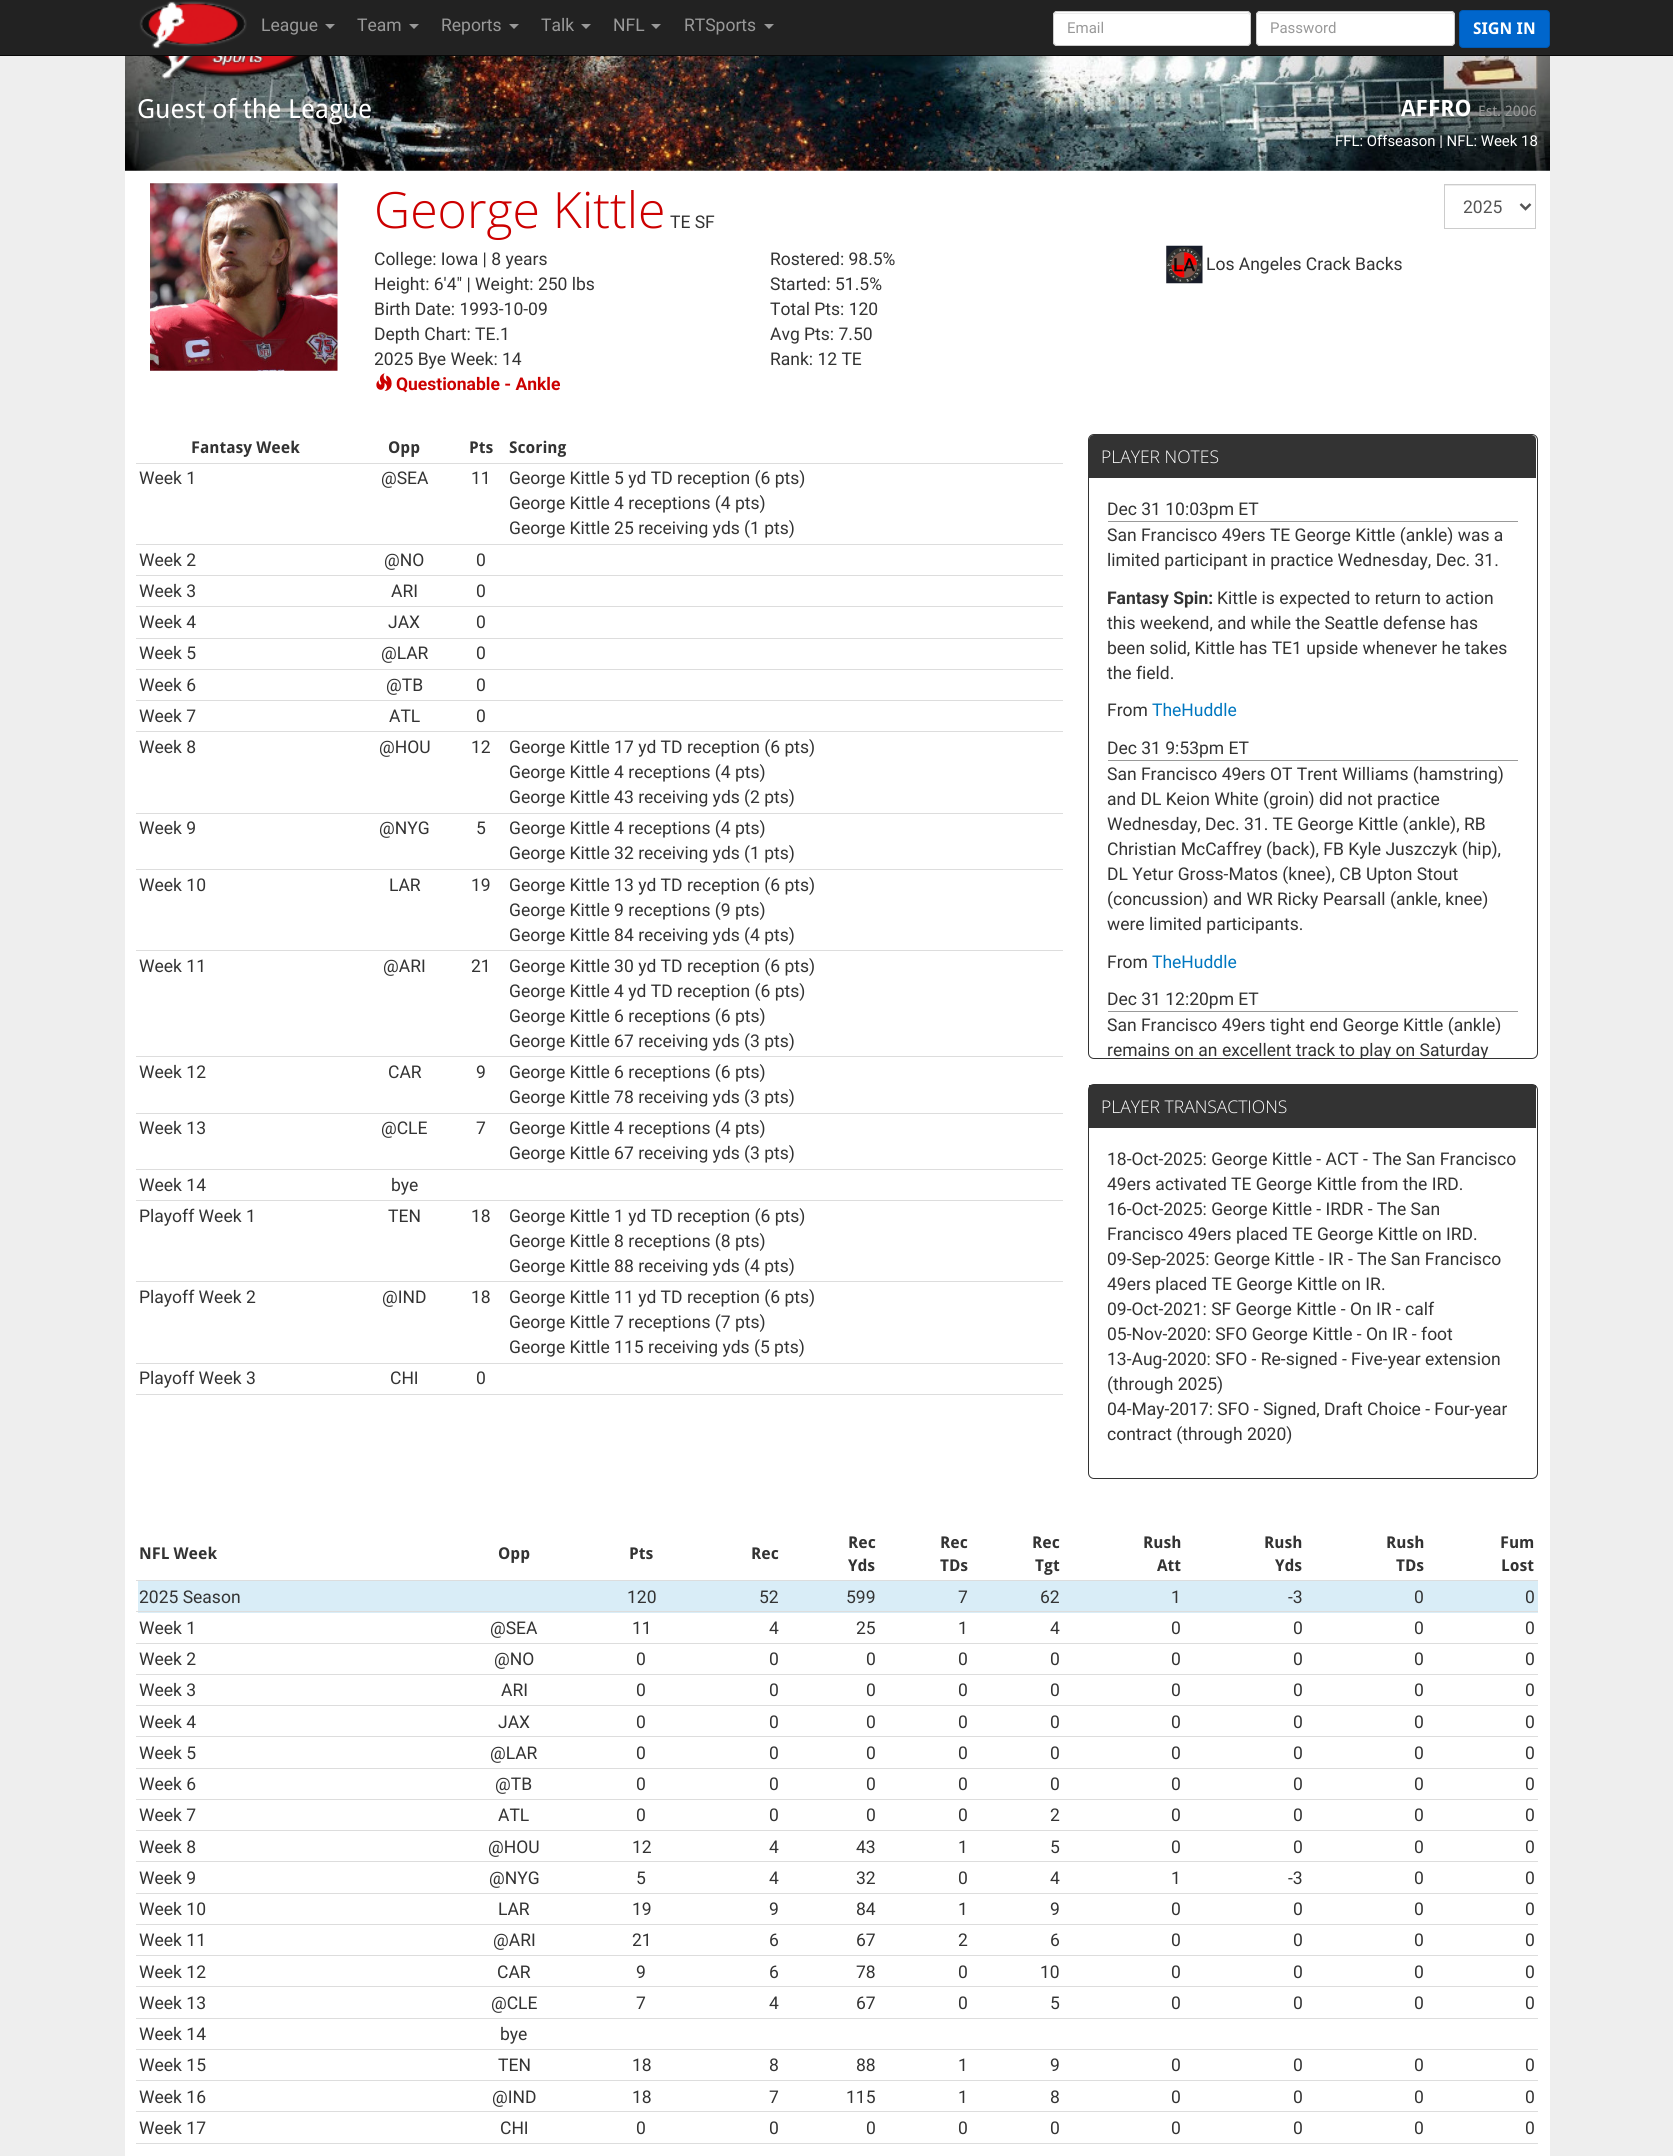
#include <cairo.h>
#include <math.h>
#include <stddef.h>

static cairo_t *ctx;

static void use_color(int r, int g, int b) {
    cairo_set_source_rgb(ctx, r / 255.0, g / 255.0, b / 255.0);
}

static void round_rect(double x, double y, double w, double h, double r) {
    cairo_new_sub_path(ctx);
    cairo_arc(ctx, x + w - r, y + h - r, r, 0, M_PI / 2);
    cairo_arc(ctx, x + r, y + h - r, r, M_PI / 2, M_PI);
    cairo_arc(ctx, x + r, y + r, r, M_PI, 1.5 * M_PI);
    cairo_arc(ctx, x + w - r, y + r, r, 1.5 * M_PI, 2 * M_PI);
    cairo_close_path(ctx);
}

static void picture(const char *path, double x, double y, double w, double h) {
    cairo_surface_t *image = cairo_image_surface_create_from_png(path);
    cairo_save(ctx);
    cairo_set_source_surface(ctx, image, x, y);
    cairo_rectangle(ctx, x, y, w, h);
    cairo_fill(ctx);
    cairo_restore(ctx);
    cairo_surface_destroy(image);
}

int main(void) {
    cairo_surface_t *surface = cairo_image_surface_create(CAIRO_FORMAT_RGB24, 1673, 2156);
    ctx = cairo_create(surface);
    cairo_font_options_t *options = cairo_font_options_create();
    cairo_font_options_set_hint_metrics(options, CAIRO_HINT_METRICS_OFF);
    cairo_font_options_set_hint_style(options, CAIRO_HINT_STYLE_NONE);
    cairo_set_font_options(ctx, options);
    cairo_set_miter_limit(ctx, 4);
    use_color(238, 238, 238);
    cairo_paint(ctx);
    use_color(34, 34, 34);
    cairo_rectangle(ctx, 0, 0, 1673, 55);
    cairo_fill(ctx);
    use_color(8, 8, 8);
    cairo_rectangle(ctx, 0, 55, 1673, 1);
    cairo_fill(ctx);
    picture("img1.png", 139, 1, 108, 48);
    cairo_select_font_face(ctx, "Roboto", CAIRO_FONT_SLANT_NORMAL, CAIRO_FONT_WEIGHT_NORMAL);
    cairo_set_font_size(ctx, 17.5);
    use_color(153, 153, 153);
    cairo_move_to(ctx, 261, 31);
    cairo_show_text(ctx, "League");
    cairo_new_path(ctx);
    cairo_move_to(ctx, 325, 24);
    cairo_line_to(ctx, 335, 24);
    cairo_line_to(ctx, 330, 29);
    cairo_close_path(ctx);
    cairo_fill(ctx);
    cairo_move_to(ctx, 357, 31);
    cairo_show_text(ctx, "Team");
    cairo_new_path(ctx);
    cairo_move_to(ctx, 409, 24);
    cairo_line_to(ctx, 419, 24);
    cairo_line_to(ctx, 414, 29);
    cairo_close_path(ctx);
    cairo_fill(ctx);
    cairo_move_to(ctx, 441, 31);
    cairo_show_text(ctx, "Reports");
    cairo_new_path(ctx);
    cairo_move_to(ctx, 509, 24);
    cairo_line_to(ctx, 519, 24);
    cairo_line_to(ctx, 514, 29);
    cairo_close_path(ctx);
    cairo_fill(ctx);
    cairo_move_to(ctx, 541, 31);
    cairo_show_text(ctx, "Talk");
    cairo_new_path(ctx);
    cairo_move_to(ctx, 581, 24);
    cairo_line_to(ctx, 591, 24);
    cairo_line_to(ctx, 586, 29);
    cairo_close_path(ctx);
    cairo_fill(ctx);
    cairo_move_to(ctx, 613, 31);
    cairo_show_text(ctx, "NFL");
    cairo_new_path(ctx);
    cairo_move_to(ctx, 651, 24);
    cairo_line_to(ctx, 661, 24);
    cairo_line_to(ctx, 656, 29);
    cairo_close_path(ctx);
    cairo_fill(ctx);
    cairo_move_to(ctx, 684, 31);
    cairo_show_text(ctx, "RTSports");
    cairo_new_path(ctx);
    cairo_move_to(ctx, 764, 24);
    cairo_line_to(ctx, 774, 24);
    cairo_line_to(ctx, 769, 29);
    cairo_close_path(ctx);
    cairo_fill(ctx);
    use_color(255, 255, 255);
    round_rect(1053, 11, 198, 35, 4);
    cairo_fill(ctx);
    use_color(236, 236, 236);
    cairo_new_path(ctx);
    cairo_move_to(ctx, 1056, 14);
    cairo_line_to(ctx, 1248, 14);
    cairo_line_to(ctx, 1250, 15);
    cairo_line_to(ctx, 1250, 16);
    cairo_line_to(ctx, 1250, 14);
    cairo_line_to(ctx, 1248, 13);
    cairo_line_to(ctx, 1056, 13);
    cairo_curve_to(ctx, 1055, 13, 1054, 14, 1054, 16);
    cairo_curve_to(ctx, 1054, 15, 1055, 14, 1056, 14);
    cairo_close_path(ctx);
    cairo_fill(ctx);
    round_rect(1053.5, 11.5, 197, 34, 3.5);
    use_color(204, 204, 204);
    cairo_set_line_width(ctx, 1);
    cairo_stroke(ctx);
    cairo_set_font_size(ctx, 15);
    use_color(153, 153, 153);
    cairo_move_to(ctx, 1067, 33);
    cairo_show_text(ctx, "Email");
    use_color(255, 255, 255);
    round_rect(1256, 11, 199, 35, 4);
    cairo_fill(ctx);
    use_color(236, 236, 236);
    cairo_new_path(ctx);
    cairo_move_to(ctx, 1260, 14);
    cairo_line_to(ctx, 1451, 14);
    cairo_curve_to(ctx, 1453, 14, 1454, 15, 1454, 16);
    cairo_line_to(ctx, 1454, 14);
    cairo_line_to(ctx, 1452, 13);
    cairo_line_to(ctx, 1260, 13);
    cairo_curve_to(ctx, 1259, 13, 1258, 14, 1258, 16);
    cairo_curve_to(ctx, 1258, 15, 1259, 14, 1260, 14);
    cairo_close_path(ctx);
    cairo_fill(ctx);
    round_rect(1256.5, 11.5, 198, 34, 3.5);
    use_color(204, 204, 204);
    cairo_stroke(ctx);
    use_color(153, 153, 153);
    cairo_move_to(ctx, 1270, 33);
    cairo_show_text(ctx, "Password");
    use_color(0, 102, 204);
    round_rect(1459.5, 10.5, 90, 37, 3.5);
    cairo_fill_preserve(ctx);
    use_color(0, 89, 179);
    cairo_stroke(ctx);
    cairo_select_font_face(ctx, "Droid Sans", CAIRO_FONT_SLANT_NORMAL, CAIRO_FONT_WEIGHT_BOLD);
    cairo_set_font_size(ctx, 16.25);
    use_color(255, 255, 255);
    cairo_move_to(ctx, 1473, 34);
    cairo_show_text(ctx, "SIGN IN");
    cairo_rectangle(ctx, 125, 170, 1425, 1986);
    cairo_fill(ctx);
    picture("img2.png", 125, 56, 1425, 115);
    picture("img3.png", 148, 56, 169, 25);
    picture("img4.png", 1443, 56, 95, 34);
    cairo_select_font_face(ctx, "Droid Sans", CAIRO_FONT_SLANT_NORMAL, CAIRO_FONT_WEIGHT_NORMAL);
    cairo_set_font_size(ctx, 26.25);
    cairo_move_to(ctx, 137, 118);
    cairo_show_text(ctx, "Guest of the League");
    cairo_select_font_face(ctx, "Droid Sans", CAIRO_FONT_SLANT_NORMAL, CAIRO_FONT_WEIGHT_BOLD);
    cairo_set_font_size(ctx, 22.5);
    cairo_move_to(ctx, 1401, 116);
    cairo_show_text(ctx, "AFFRO");
    cairo_select_font_face(ctx, "Droid Sans", CAIRO_FONT_SLANT_NORMAL, CAIRO_FONT_WEIGHT_NORMAL);
    cairo_set_font_size(ctx, 14.5);
    use_color(153, 153, 153);
    cairo_move_to(ctx, 1478, 116);
    cairo_show_text(ctx, "Est. 2006");
    cairo_select_font_face(ctx, "Roboto", CAIRO_FONT_SLANT_NORMAL, CAIRO_FONT_WEIGHT_NORMAL);
    cairo_set_font_size(ctx, 14.9);
    use_color(255, 255, 255);
    cairo_move_to(ctx, 1335, 146);
    cairo_show_text(ctx, "FFL: Offseason | NFL: Week 18");
    picture("img5.png", 150, 183, 188, 188);
    cairo_select_font_face(ctx, "Open Sans Light", CAIRO_FONT_SLANT_NORMAL, CAIRO_FONT_WEIGHT_NORMAL);
    cairo_set_font_size(ctx, 50);
    use_color(204, 0, 0);
    cairo_move_to(ctx, 374, 228);
    cairo_show_text(ctx, "George Kittle");
    cairo_select_font_face(ctx, "Roboto", CAIRO_FONT_SLANT_NORMAL, CAIRO_FONT_WEIGHT_NORMAL);
    cairo_set_font_size(ctx, 17.5);
    use_color(51, 51, 51);
    cairo_move_to(ctx, 670, 228);
    cairo_show_text(ctx, "TE SF");
    use_color(236, 236, 236);
    cairo_rectangle(ctx, 1445, 185, 90, 1);
    cairo_fill(ctx);
    cairo_rectangle(ctx, 1444.5, 184.5, 91, 44);
    use_color(204, 204, 204);
    cairo_stroke(ctx);
    cairo_new_path(ctx);
    cairo_move_to(ctx, 1520.5, 204);
    cairo_line_to(ctx, 1525.5, 209);
    cairo_line_to(ctx, 1530.5, 204);
    use_color(85, 85, 85);
    cairo_set_line_width(ctx, 2.5);
    cairo_stroke(ctx);
    cairo_move_to(ctx, 1463, 213);
    cairo_show_text(ctx, "2025");
    use_color(51, 51, 51);
    cairo_move_to(ctx, 374, 265);
    cairo_show_text(ctx, "College: Iowa | 8 years");
    cairo_move_to(ctx, 374, 290);
    cairo_show_text(ctx, "Height: 6'4\" | Weight: 250 lbs");
    cairo_move_to(ctx, 374, 315);
    cairo_show_text(ctx, "Birth Date: 1993-10-09");
    cairo_move_to(ctx, 374, 340);
    cairo_show_text(ctx, "Depth Chart: TE.1");
    cairo_move_to(ctx, 374, 365);
    cairo_show_text(ctx, "2025 Bye Week: 14");
    picture("img6.png", 376, 373, 16, 18);
    cairo_select_font_face(ctx, "Roboto", CAIRO_FONT_SLANT_NORMAL, CAIRO_FONT_WEIGHT_BOLD);
    use_color(204, 0, 0);
    cairo_move_to(ctx, 396, 390);
    cairo_show_text(ctx, "Questionable - Ankle");
    cairo_select_font_face(ctx, "Roboto", CAIRO_FONT_SLANT_NORMAL, CAIRO_FONT_WEIGHT_NORMAL);
    use_color(51, 51, 51);
    cairo_move_to(ctx, 770, 265);
    cairo_show_text(ctx, "Rostered: 98.5%");
    cairo_move_to(ctx, 770, 290);
    cairo_show_text(ctx, "Started: 51.5%");
    cairo_move_to(ctx, 770, 315);
    cairo_show_text(ctx, "Total Pts: 120");
    cairo_move_to(ctx, 770, 340);
    cairo_show_text(ctx, "Avg Pts: 7.50");
    cairo_move_to(ctx, 770, 365);
    cairo_show_text(ctx, "Rank: 12 TE");
    picture("img7.png", 1166, 245, 37, 39);
    cairo_move_to(ctx, 1206, 270);
    cairo_show_text(ctx, "Los Angeles Crack Backs");
    cairo_select_font_face(ctx, "Droid Sans", CAIRO_FONT_SLANT_NORMAL, CAIRO_FONT_WEIGHT_BOLD);
    cairo_set_font_size(ctx, 16.25);
    cairo_move_to(ctx, 191, 453);
    cairo_show_text(ctx, "Fantasy Week");
    cairo_move_to(ctx, 388, 453);
    cairo_show_text(ctx, "Opp");
    cairo_move_to(ctx, 469, 453);
    cairo_show_text(ctx, "Pts");
    cairo_move_to(ctx, 509, 453);
    cairo_show_text(ctx, "Scoring");
    cairo_select_font_face(ctx, "Roboto", CAIRO_FONT_SLANT_NORMAL, CAIRO_FONT_WEIGHT_NORMAL);
    cairo_set_font_size(ctx, 17.5);
    cairo_move_to(ctx, 139, 484);
    cairo_show_text(ctx, "Week 1");
    cairo_move_to(ctx, 381, 484);
    cairo_show_text(ctx, "@SEA");
    cairo_move_to(ctx, 471, 484);
    cairo_show_text(ctx, "11");
    use_color(221, 221, 221);
    cairo_rectangle(ctx, 136, 463, 927, 1);
    cairo_fill(ctx);
    use_color(51, 51, 51);
    cairo_move_to(ctx, 509, 484);
    cairo_show_text(ctx, "George Kittle 5 yd TD reception (6 pts)");
    cairo_move_to(ctx, 509, 509);
    cairo_show_text(ctx, "George Kittle 4 receptions (4 pts)");
    cairo_move_to(ctx, 509, 534);
    cairo_show_text(ctx, "George Kittle 25 receiving yds (1 pts)");
    use_color(221, 221, 221);
    cairo_rectangle(ctx, 136, 544, 927, 1);
    cairo_fill(ctx);
    use_color(51, 51, 51);
    cairo_move_to(ctx, 139, 566);
    cairo_show_text(ctx, "Week 2");
    cairo_move_to(ctx, 384, 566);
    cairo_show_text(ctx, "@NO");
    cairo_move_to(ctx, 476, 566);
    cairo_show_text(ctx, "0");
    use_color(221, 221, 221);
    cairo_rectangle(ctx, 136, 575, 927, 1);
    cairo_fill(ctx);
    use_color(51, 51, 51);
    cairo_move_to(ctx, 139, 597);
    cairo_show_text(ctx, "Week 3");
    cairo_move_to(ctx, 391, 597);
    cairo_show_text(ctx, "ARI");
    cairo_move_to(ctx, 476, 597);
    cairo_show_text(ctx, "0");
    use_color(221, 221, 221);
    cairo_rectangle(ctx, 136, 606, 927, 1);
    cairo_fill(ctx);
    use_color(51, 51, 51);
    cairo_move_to(ctx, 139, 628);
    cairo_show_text(ctx, "Week 4");
    cairo_move_to(ctx, 388, 628);
    cairo_show_text(ctx, "JAX");
    cairo_move_to(ctx, 476, 628);
    cairo_show_text(ctx, "0");
    use_color(221, 221, 221);
    cairo_rectangle(ctx, 136, 638, 927, 1);
    cairo_fill(ctx);
    use_color(51, 51, 51);
    cairo_move_to(ctx, 139, 659);
    cairo_show_text(ctx, "Week 5");
    cairo_move_to(ctx, 381, 659);
    cairo_show_text(ctx, "@LAR");
    cairo_move_to(ctx, 476, 659);
    cairo_show_text(ctx, "0");
    use_color(221, 221, 221);
    cairo_rectangle(ctx, 136, 669, 927, 1);
    cairo_fill(ctx);
    use_color(51, 51, 51);
    cairo_move_to(ctx, 139, 691);
    cairo_show_text(ctx, "Week 6");
    cairo_move_to(ctx, 386, 691);
    cairo_show_text(ctx, "@TB");
    cairo_move_to(ctx, 476, 691);
    cairo_show_text(ctx, "0");
    use_color(221, 221, 221);
    cairo_rectangle(ctx, 136, 700, 927, 1);
    cairo_fill(ctx);
    use_color(51, 51, 51);
    cairo_move_to(ctx, 139, 722);
    cairo_show_text(ctx, "Week 7");
    cairo_move_to(ctx, 389, 722);
    cairo_show_text(ctx, "ATL");
    cairo_move_to(ctx, 476, 722);
    cairo_show_text(ctx, "0");
    cairo_move_to(ctx, 139, 753);
    cairo_show_text(ctx, "Week 8");
    cairo_move_to(ctx, 379, 753);
    cairo_show_text(ctx, "@HOU");
    cairo_move_to(ctx, 471, 753);
    cairo_show_text(ctx, "12");
    use_color(221, 221, 221);
    cairo_rectangle(ctx, 136, 731, 927, 1);
    cairo_fill(ctx);
    use_color(51, 51, 51);
    cairo_move_to(ctx, 509, 753);
    cairo_show_text(ctx, "George Kittle 17 yd TD reception (6 pts)");
    cairo_move_to(ctx, 509, 778);
    cairo_show_text(ctx, "George Kittle 4 receptions (4 pts)");
    cairo_move_to(ctx, 509, 803);
    cairo_show_text(ctx, "George Kittle 43 receiving yds (2 pts)");
    cairo_move_to(ctx, 139, 834);
    cairo_show_text(ctx, "Week 9");
    cairo_move_to(ctx, 379, 834);
    cairo_show_text(ctx, "@NYG");
    cairo_move_to(ctx, 476, 834);
    cairo_show_text(ctx, "5");
    use_color(221, 221, 221);
    cairo_rectangle(ctx, 136, 813, 927, 1);
    cairo_fill(ctx);
    use_color(51, 51, 51);
    cairo_move_to(ctx, 509, 834);
    cairo_show_text(ctx, "George Kittle 4 receptions (4 pts)");
    cairo_move_to(ctx, 509, 859);
    cairo_show_text(ctx, "George Kittle 32 receiving yds (1 pts)");
    cairo_move_to(ctx, 139, 891);
    cairo_show_text(ctx, "Week 10");
    cairo_move_to(ctx, 389, 891);
    cairo_show_text(ctx, "LAR");
    cairo_move_to(ctx, 471, 891);
    cairo_show_text(ctx, "19");
    use_color(221, 221, 221);
    cairo_rectangle(ctx, 136, 869, 927, 1);
    cairo_fill(ctx);
    use_color(51, 51, 51);
    cairo_move_to(ctx, 509, 891);
    cairo_show_text(ctx, "George Kittle 13 yd TD reception (6 pts)");
    cairo_move_to(ctx, 509, 916);
    cairo_show_text(ctx, "George Kittle 9 receptions (9 pts)");
    cairo_move_to(ctx, 509, 941);
    cairo_show_text(ctx, "George Kittle 84 receiving yds (4 pts)");
    cairo_move_to(ctx, 139, 972);
    cairo_show_text(ctx, "Week 11");
    cairo_move_to(ctx, 383, 972);
    cairo_show_text(ctx, "@ARI");
    cairo_move_to(ctx, 471, 972);
    cairo_show_text(ctx, "21");
    use_color(221, 221, 221);
    cairo_rectangle(ctx, 136, 950, 927, 1);
    cairo_fill(ctx);
    use_color(51, 51, 51);
    cairo_move_to(ctx, 509, 972);
    cairo_show_text(ctx, "George Kittle 30 yd TD reception (6 pts)");
    cairo_move_to(ctx, 509, 997);
    cairo_show_text(ctx, "George Kittle 4 yd TD reception (6 pts)");
    cairo_move_to(ctx, 509, 1022);
    cairo_show_text(ctx, "George Kittle 6 receptions (6 pts)");
    cairo_move_to(ctx, 509, 1047);
    cairo_show_text(ctx, "George Kittle 67 receiving yds (3 pts)");
    cairo_move_to(ctx, 139, 1078);
    cairo_show_text(ctx, "Week 12");
    cairo_move_to(ctx, 388, 1078);
    cairo_show_text(ctx, "CAR");
    cairo_move_to(ctx, 476, 1078);
    cairo_show_text(ctx, "9");
    use_color(221, 221, 221);
    cairo_rectangle(ctx, 136, 1056, 927, 1);
    cairo_fill(ctx);
    use_color(51, 51, 51);
    cairo_move_to(ctx, 509, 1078);
    cairo_show_text(ctx, "George Kittle 6 receptions (6 pts)");
    cairo_move_to(ctx, 509, 1103);
    cairo_show_text(ctx, "George Kittle 78 receiving yds (3 pts)");
    cairo_move_to(ctx, 139, 1134);
    cairo_show_text(ctx, "Week 13");
    cairo_move_to(ctx, 381, 1134);
    cairo_show_text(ctx, "@CLE");
    cairo_move_to(ctx, 476, 1134);
    cairo_show_text(ctx, "7");
    use_color(221, 221, 221);
    cairo_rectangle(ctx, 136, 1113, 927, 1);
    cairo_fill(ctx);
    use_color(51, 51, 51);
    cairo_move_to(ctx, 509, 1134);
    cairo_show_text(ctx, "George Kittle 4 receptions (4 pts)");
    cairo_move_to(ctx, 509, 1159);
    cairo_show_text(ctx, "George Kittle 67 receiving yds (3 pts)");
    use_color(221, 221, 221);
    cairo_rectangle(ctx, 136, 1169, 927, 1);
    cairo_fill(ctx);
    use_color(51, 51, 51);
    cairo_move_to(ctx, 139, 1191);
    cairo_show_text(ctx, "Week 14");
    cairo_move_to(ctx, 391, 1191);
    cairo_show_text(ctx, "bye");
    cairo_move_to(ctx, 139, 1222);
    cairo_show_text(ctx, "Playoff Week 1");
    cairo_move_to(ctx, 388, 1222);
    cairo_show_text(ctx, "TEN");
    cairo_move_to(ctx, 471, 1222);
    cairo_show_text(ctx, "18");
    use_color(221, 221, 221);
    cairo_rectangle(ctx, 136, 1200, 927, 1);
    cairo_fill(ctx);
    use_color(51, 51, 51);
    cairo_move_to(ctx, 509, 1222);
    cairo_show_text(ctx, "George Kittle 1 yd TD reception (6 pts)");
    cairo_move_to(ctx, 509, 1247);
    cairo_show_text(ctx, "George Kittle 8 receptions (8 pts)");
    cairo_move_to(ctx, 509, 1272);
    cairo_show_text(ctx, "George Kittle 88 receiving yds (4 pts)");
    cairo_move_to(ctx, 139, 1303);
    cairo_show_text(ctx, "Playoff Week 2");
    cairo_move_to(ctx, 382, 1303);
    cairo_show_text(ctx, "@IND");
    cairo_move_to(ctx, 471, 1303);
    cairo_show_text(ctx, "18");
    use_color(221, 221, 221);
    cairo_rectangle(ctx, 136, 1281, 927, 1);
    cairo_fill(ctx);
    use_color(51, 51, 51);
    cairo_move_to(ctx, 509, 1303);
    cairo_show_text(ctx, "George Kittle 11 yd TD reception (6 pts)");
    cairo_move_to(ctx, 509, 1328);
    cairo_show_text(ctx, "George Kittle 7 receptions (7 pts)");
    cairo_move_to(ctx, 509, 1353);
    cairo_show_text(ctx, "George Kittle 115 receiving yds (5 pts)");
    use_color(221, 221, 221);
    cairo_rectangle(ctx, 136, 1363, 927, 1);
    cairo_fill(ctx);
    cairo_rectangle(ctx, 136, 1394, 927, 1);
    cairo_fill(ctx);
    use_color(51, 51, 51);
    cairo_move_to(ctx, 139, 1384);
    cairo_show_text(ctx, "Playoff Week 3");
    cairo_move_to(ctx, 390, 1384);
    cairo_show_text(ctx, "CHI");
    cairo_move_to(ctx, 476, 1384);
    cairo_show_text(ctx, "0");
    round_rect(1088.5, 434.5, 449, 624, 5.5);
    cairo_set_line_width(ctx, 1);
    cairo_stroke(ctx);
    cairo_new_path(ctx);
    cairo_move_to(ctx, 1094, 435);
    cairo_line_to(ctx, 1531, 435);
    cairo_curve_to(ctx, 1534, 435, 1536, 437, 1536, 440);
    cairo_line_to(ctx, 1536, 478);
    cairo_line_to(ctx, 1089, 478);
    cairo_line_to(ctx, 1089, 440);
    cairo_curve_to(ctx, 1089, 437, 1091, 435, 1094, 435);
    cairo_close_path(ctx);
    cairo_fill(ctx);
    cairo_select_font_face(ctx, "Open Sans Light", CAIRO_FONT_SLANT_NORMAL, CAIRO_FONT_WEIGHT_NORMAL);
    use_color(255, 255, 255);
    cairo_move_to(ctx, 1101, 463);
    cairo_show_text(ctx, "PLAYER NOTES");
    use_color(153, 153, 153);
    cairo_rectangle(ctx, 1108, 521, 410, 1);
    cairo_fill(ctx);
    cairo_select_font_face(ctx, "Roboto", CAIRO_FONT_SLANT_NORMAL, CAIRO_FONT_WEIGHT_NORMAL);
    use_color(51, 51, 51);
    cairo_move_to(ctx, 1107, 515);
    cairo_show_text(ctx, "Dec 31 10:03pm ET");
    cairo_move_to(ctx, 1107, 541);
    cairo_show_text(ctx, "San Francisco 49ers TE George Kittle (ankle) was a");
    cairo_move_to(ctx, 1107, 566);
    cairo_show_text(ctx, "limited participant in practice Wednesday, Dec. 31.");
    cairo_select_font_face(ctx, "Roboto", CAIRO_FONT_SLANT_NORMAL, CAIRO_FONT_WEIGHT_BOLD);
    cairo_move_to(ctx, 1107, 604);
    cairo_show_text(ctx, "Fantasy Spin:");
    cairo_select_font_face(ctx, "Roboto", CAIRO_FONT_SLANT_NORMAL, CAIRO_FONT_WEIGHT_NORMAL);
    cairo_move_to(ctx, 1217, 604);
    cairo_show_text(ctx, "Kittle is expected to return to action");
    cairo_move_to(ctx, 1107, 629);
    cairo_show_text(ctx, "this weekend, and while the Seattle defense has");
    cairo_move_to(ctx, 1107, 654);
    cairo_show_text(ctx, "been solid, Kittle has TE1 upside whenever he takes");
    cairo_move_to(ctx, 1107, 679);
    cairo_show_text(ctx, "the field.");
    cairo_move_to(ctx, 1107, 716);
    cairo_show_text(ctx, "From");
    use_color(0, 119, 192);
    cairo_move_to(ctx, 1152, 716);
    cairo_show_text(ctx, "TheHuddle");
    use_color(153, 153, 153);
    cairo_rectangle(ctx, 1108, 760, 410, 1);
    cairo_fill(ctx);
    use_color(51, 51, 51);
    cairo_move_to(ctx, 1107, 754);
    cairo_show_text(ctx, "Dec 31 9:53pm ET");
    cairo_move_to(ctx, 1107, 780);
    cairo_show_text(ctx, "San Francisco 49ers OT Trent Williams (hamstring)");
    cairo_move_to(ctx, 1107, 805);
    cairo_show_text(ctx, "and DL Keion White (groin) did not practice");
    cairo_move_to(ctx, 1107, 830);
    cairo_show_text(ctx, "Wednesday, Dec. 31. TE George Kittle (ankle), RB");
    cairo_move_to(ctx, 1107, 855);
    cairo_show_text(ctx, "Christian McCaffrey (back), FB Kyle Juszczyk (hip),");
    cairo_move_to(ctx, 1107, 880);
    cairo_show_text(ctx, "DL Yetur Gross-Matos (knee), CB Upton Stout");
    cairo_move_to(ctx, 1107, 905);
    cairo_show_text(ctx, "(concussion) and WR Ricky Pearsall (ankle, knee)");
    cairo_move_to(ctx, 1107, 930);
    cairo_show_text(ctx, "were limited participants.");
    cairo_move_to(ctx, 1107, 968);
    cairo_show_text(ctx, "From");
    use_color(0, 119, 192);
    cairo_move_to(ctx, 1152, 968);
    cairo_show_text(ctx, "TheHuddle");
    use_color(153, 153, 153);
    cairo_rectangle(ctx, 1108, 1011, 410, 1);
    cairo_fill(ctx);
    use_color(51, 51, 51);
    cairo_move_to(ctx, 1107, 1005);
    cairo_show_text(ctx, "Dec 31 12:20pm ET");
    cairo_move_to(ctx, 1107, 1031);
    cairo_show_text(ctx, "San Francisco 49ers tight end George Kittle (ankle)");
    cairo_save(ctx);
    round_rect(1089, 435, 447, 623, 5);
    cairo_clip(ctx);
    cairo_move_to(ctx, 1107, 1056);
    cairo_show_text(ctx, "remains on an excellent track to play on Saturday");
    cairo_restore(ctx);
    round_rect(1088.5, 1084.5, 449, 394, 5.5);
    cairo_stroke(ctx);
    cairo_rectangle(ctx, 1089, 1085, 447, 43);
    cairo_fill(ctx);
    cairo_select_font_face(ctx, "Open Sans Light", CAIRO_FONT_SLANT_NORMAL, CAIRO_FONT_WEIGHT_NORMAL);
    use_color(255, 255, 255);
    cairo_move_to(ctx, 1101, 1113);
    cairo_show_text(ctx, "PLAYER TRANSACTIONS");
    cairo_select_font_face(ctx, "Roboto", CAIRO_FONT_SLANT_NORMAL, CAIRO_FONT_WEIGHT_NORMAL);
    use_color(51, 51, 51);
    cairo_move_to(ctx, 1107, 1165);
    cairo_show_text(ctx, "18-Oct-2025: George Kittle - ACT - The San Francisco");
    cairo_move_to(ctx, 1107, 1190);
    cairo_show_text(ctx, "49ers activated TE George Kittle from the IRD.");
    cairo_move_to(ctx, 1107, 1215);
    cairo_show_text(ctx, "16-Oct-2025: George Kittle - IRDR - The San");
    cairo_move_to(ctx, 1107, 1240);
    cairo_show_text(ctx, "Francisco 49ers placed TE George Kittle on IRD.");
    cairo_move_to(ctx, 1107, 1265);
    cairo_show_text(ctx, "09-Sep-2025: George Kittle - IR - The San Francisco");
    cairo_move_to(ctx, 1107, 1290);
    cairo_show_text(ctx, "49ers placed TE George Kittle on IR.");
    cairo_move_to(ctx, 1107, 1315);
    cairo_show_text(ctx, "09-Oct-2021: SF George Kittle - On IR - calf");
    cairo_move_to(ctx, 1107, 1340);
    cairo_show_text(ctx, "05-Nov-2020: SFO George Kittle - On IR - foot");
    cairo_move_to(ctx, 1107, 1365);
    cairo_show_text(ctx, "13-Aug-2020: SFO - Re-signed - Five-year extension");
    cairo_move_to(ctx, 1107, 1390);
    cairo_show_text(ctx, "(through 2025)");
    cairo_move_to(ctx, 1107, 1415);
    cairo_show_text(ctx, "04-May-2017: SFO - Signed, Draft Choice - Four-year");
    cairo_move_to(ctx, 1107, 1440);
    cairo_show_text(ctx, "contract (through 2020)");
    cairo_select_font_face(ctx, "Droid Sans", CAIRO_FONT_SLANT_NORMAL, CAIRO_FONT_WEIGHT_BOLD);
    cairo_set_font_size(ctx, 16.25);
    cairo_move_to(ctx, 139, 1559);
    cairo_show_text(ctx, "NFL Week");
    cairo_move_to(ctx, 498, 1559);
    cairo_show_text(ctx, "Opp");
    cairo_move_to(ctx, 629, 1559);
    cairo_show_text(ctx, "Pts");
    cairo_move_to(ctx, 751, 1559);
    cairo_show_text(ctx, "Rec");
    cairo_move_to(ctx, 848, 1548);
    cairo_show_text(ctx, "Rec");
    cairo_move_to(ctx, 848, 1571);
    cairo_show_text(ctx, "Yds");
    cairo_move_to(ctx, 940, 1548);
    cairo_show_text(ctx, "Rec");
    cairo_move_to(ctx, 940, 1571);
    cairo_show_text(ctx, "TDs");
    cairo_move_to(ctx, 1032, 1548);
    cairo_show_text(ctx, "Rec");
    cairo_move_to(ctx, 1035, 1571);
    cairo_show_text(ctx, "Tgt");
    cairo_move_to(ctx, 1143, 1548);
    cairo_show_text(ctx, "Rush");
    cairo_move_to(ctx, 1157, 1571);
    cairo_show_text(ctx, "Att");
    cairo_move_to(ctx, 1264, 1548);
    cairo_show_text(ctx, "Rush");
    cairo_move_to(ctx, 1275, 1571);
    cairo_show_text(ctx, "Yds");
    cairo_move_to(ctx, 1386, 1548);
    cairo_show_text(ctx, "Rush");
    cairo_move_to(ctx, 1396, 1571);
    cairo_show_text(ctx, "TDs");
    cairo_move_to(ctx, 1500, 1548);
    cairo_show_text(ctx, "Fum");
    cairo_move_to(ctx, 1501, 1571);
    cairo_show_text(ctx, "Lost");
    use_color(217, 237, 247);
    cairo_rectangle(ctx, 138, 1581, 1400, 32);
    cairo_fill(ctx);
    cairo_select_font_face(ctx, "Roboto", CAIRO_FONT_SLANT_NORMAL, CAIRO_FONT_WEIGHT_NORMAL);
    cairo_set_font_size(ctx, 17.5);
    use_color(51, 51, 51);
    cairo_move_to(ctx, 139, 1603);
    cairo_show_text(ctx, "2025 Season");
    cairo_move_to(ctx, 627, 1603);
    cairo_show_text(ctx, "120");
    cairo_move_to(ctx, 759, 1603);
    cairo_show_text(ctx, "52");
    cairo_move_to(ctx, 846, 1603);
    cairo_show_text(ctx, "599");
    cairo_move_to(ctx, 958, 1603);
    cairo_show_text(ctx, "7");
    cairo_move_to(ctx, 1040, 1603);
    cairo_show_text(ctx, "62");
    cairo_move_to(ctx, 1171, 1603);
    cairo_show_text(ctx, "1");
    cairo_move_to(ctx, 1288, 1603);
    cairo_show_text(ctx, "-3");
    cairo_move_to(ctx, 1414, 1603);
    cairo_show_text(ctx, "0");
    use_color(221, 221, 221);
    cairo_rectangle(ctx, 136, 1580, 1402, 1);
    cairo_fill(ctx);
    use_color(51, 51, 51);
    cairo_move_to(ctx, 1525, 1603);
    cairo_show_text(ctx, "0");
    cairo_move_to(ctx, 139, 1634);
    cairo_show_text(ctx, "Week 1");
    cairo_move_to(ctx, 490, 1634);
    cairo_show_text(ctx, "@SEA");
    cairo_move_to(ctx, 632, 1634);
    cairo_show_text(ctx, "11");
    cairo_move_to(ctx, 769, 1634);
    cairo_show_text(ctx, "4");
    cairo_move_to(ctx, 856, 1634);
    cairo_show_text(ctx, "25");
    cairo_move_to(ctx, 958, 1634);
    cairo_show_text(ctx, "1");
    cairo_move_to(ctx, 1050, 1634);
    cairo_show_text(ctx, "4");
    cairo_move_to(ctx, 1171, 1634);
    cairo_show_text(ctx, "0");
    cairo_move_to(ctx, 1293, 1634);
    cairo_show_text(ctx, "0");
    cairo_move_to(ctx, 1414, 1634);
    cairo_show_text(ctx, "0");
    use_color(221, 221, 221);
    cairo_rectangle(ctx, 136, 1611, 1402, 1);
    cairo_fill(ctx);
    use_color(51, 51, 51);
    cairo_move_to(ctx, 1525, 1634);
    cairo_show_text(ctx, "0");
    cairo_move_to(ctx, 139, 1665);
    cairo_show_text(ctx, "Week 2");
    cairo_move_to(ctx, 494, 1665);
    cairo_show_text(ctx, "@NO");
    cairo_move_to(ctx, 636, 1665);
    cairo_show_text(ctx, "0");
    cairo_move_to(ctx, 769, 1665);
    cairo_show_text(ctx, "0");
    cairo_move_to(ctx, 866, 1665);
    cairo_show_text(ctx, "0");
    cairo_move_to(ctx, 958, 1665);
    cairo_show_text(ctx, "0");
    cairo_move_to(ctx, 1050, 1665);
    cairo_show_text(ctx, "0");
    cairo_move_to(ctx, 1171, 1665);
    cairo_show_text(ctx, "0");
    cairo_move_to(ctx, 1293, 1665);
    cairo_show_text(ctx, "0");
    cairo_move_to(ctx, 1414, 1665);
    cairo_show_text(ctx, "0");
    use_color(221, 221, 221);
    cairo_rectangle(ctx, 136, 1643, 1402, 1);
    cairo_fill(ctx);
    use_color(51, 51, 51);
    cairo_move_to(ctx, 1525, 1665);
    cairo_show_text(ctx, "0");
    cairo_move_to(ctx, 139, 1696);
    cairo_show_text(ctx, "Week 3");
    cairo_move_to(ctx, 501, 1696);
    cairo_show_text(ctx, "ARI");
    cairo_move_to(ctx, 636, 1696);
    cairo_show_text(ctx, "0");
    cairo_move_to(ctx, 769, 1696);
    cairo_show_text(ctx, "0");
    cairo_move_to(ctx, 866, 1696);
    cairo_show_text(ctx, "0");
    cairo_move_to(ctx, 958, 1696);
    cairo_show_text(ctx, "0");
    cairo_move_to(ctx, 1050, 1696);
    cairo_show_text(ctx, "0");
    cairo_move_to(ctx, 1171, 1696);
    cairo_show_text(ctx, "0");
    cairo_move_to(ctx, 1293, 1696);
    cairo_show_text(ctx, "0");
    cairo_move_to(ctx, 1414, 1696);
    cairo_show_text(ctx, "0");
    use_color(221, 221, 221);
    cairo_rectangle(ctx, 136, 1674, 1402, 1);
    cairo_fill(ctx);
    use_color(51, 51, 51);
    cairo_move_to(ctx, 1525, 1696);
    cairo_show_text(ctx, "0");
    cairo_move_to(ctx, 139, 1728);
    cairo_show_text(ctx, "Week 4");
    cairo_move_to(ctx, 498, 1728);
    cairo_show_text(ctx, "JAX");
    cairo_move_to(ctx, 636, 1728);
    cairo_show_text(ctx, "0");
    cairo_move_to(ctx, 769, 1728);
    cairo_show_text(ctx, "0");
    cairo_move_to(ctx, 866, 1728);
    cairo_show_text(ctx, "0");
    cairo_move_to(ctx, 958, 1728);
    cairo_show_text(ctx, "0");
    cairo_move_to(ctx, 1050, 1728);
    cairo_show_text(ctx, "0");
    cairo_move_to(ctx, 1171, 1728);
    cairo_show_text(ctx, "0");
    cairo_move_to(ctx, 1293, 1728);
    cairo_show_text(ctx, "0");
    cairo_move_to(ctx, 1414, 1728);
    cairo_show_text(ctx, "0");
    use_color(221, 221, 221);
    cairo_rectangle(ctx, 136, 1705, 1402, 1);
    cairo_fill(ctx);
    use_color(51, 51, 51);
    cairo_move_to(ctx, 1525, 1728);
    cairo_show_text(ctx, "0");
    cairo_move_to(ctx, 139, 1759);
    cairo_show_text(ctx, "Week 5");
    cairo_move_to(ctx, 490, 1759);
    cairo_show_text(ctx, "@LAR");
    cairo_move_to(ctx, 636, 1759);
    cairo_show_text(ctx, "0");
    cairo_move_to(ctx, 769, 1759);
    cairo_show_text(ctx, "0");
    cairo_move_to(ctx, 866, 1759);
    cairo_show_text(ctx, "0");
    cairo_move_to(ctx, 958, 1759);
    cairo_show_text(ctx, "0");
    cairo_move_to(ctx, 1050, 1759);
    cairo_show_text(ctx, "0");
    cairo_move_to(ctx, 1171, 1759);
    cairo_show_text(ctx, "0");
    cairo_move_to(ctx, 1293, 1759);
    cairo_show_text(ctx, "0");
    cairo_move_to(ctx, 1414, 1759);
    cairo_show_text(ctx, "0");
    use_color(221, 221, 221);
    cairo_rectangle(ctx, 136, 1736, 1402, 1);
    cairo_fill(ctx);
    use_color(51, 51, 51);
    cairo_move_to(ctx, 1525, 1759);
    cairo_show_text(ctx, "0");
    cairo_move_to(ctx, 139, 1790);
    cairo_show_text(ctx, "Week 6");
    cairo_move_to(ctx, 495, 1790);
    cairo_show_text(ctx, "@TB");
    cairo_move_to(ctx, 636, 1790);
    cairo_show_text(ctx, "0");
    cairo_move_to(ctx, 769, 1790);
    cairo_show_text(ctx, "0");
    cairo_move_to(ctx, 866, 1790);
    cairo_show_text(ctx, "0");
    cairo_move_to(ctx, 958, 1790);
    cairo_show_text(ctx, "0");
    cairo_move_to(ctx, 1050, 1790);
    cairo_show_text(ctx, "0");
    cairo_move_to(ctx, 1171, 1790);
    cairo_show_text(ctx, "0");
    cairo_move_to(ctx, 1293, 1790);
    cairo_show_text(ctx, "0");
    cairo_move_to(ctx, 1414, 1790);
    cairo_show_text(ctx, "0");
    use_color(221, 221, 221);
    cairo_rectangle(ctx, 136, 1768, 1402, 1);
    cairo_fill(ctx);
    use_color(51, 51, 51);
    cairo_move_to(ctx, 1525, 1790);
    cairo_show_text(ctx, "0");
    cairo_move_to(ctx, 139, 1821);
    cairo_show_text(ctx, "Week 7");
    cairo_move_to(ctx, 498, 1821);
    cairo_show_text(ctx, "ATL");
    cairo_move_to(ctx, 636, 1821);
    cairo_show_text(ctx, "0");
    cairo_move_to(ctx, 769, 1821);
    cairo_show_text(ctx, "0");
    cairo_move_to(ctx, 866, 1821);
    cairo_show_text(ctx, "0");
    cairo_move_to(ctx, 958, 1821);
    cairo_show_text(ctx, "0");
    cairo_move_to(ctx, 1050, 1821);
    cairo_show_text(ctx, "2");
    cairo_move_to(ctx, 1171, 1821);
    cairo_show_text(ctx, "0");
    cairo_move_to(ctx, 1293, 1821);
    cairo_show_text(ctx, "0");
    cairo_move_to(ctx, 1414, 1821);
    cairo_show_text(ctx, "0");
    use_color(221, 221, 221);
    cairo_rectangle(ctx, 136, 1799, 1402, 1);
    cairo_fill(ctx);
    use_color(51, 51, 51);
    cairo_move_to(ctx, 1525, 1821);
    cairo_show_text(ctx, "0");
    cairo_move_to(ctx, 139, 1853);
    cairo_show_text(ctx, "Week 8");
    cairo_move_to(ctx, 488, 1853);
    cairo_show_text(ctx, "@HOU");
    cairo_move_to(ctx, 632, 1853);
    cairo_show_text(ctx, "12");
    cairo_move_to(ctx, 769, 1853);
    cairo_show_text(ctx, "4");
    cairo_move_to(ctx, 856, 1853);
    cairo_show_text(ctx, "43");
    cairo_move_to(ctx, 958, 1853);
    cairo_show_text(ctx, "1");
    cairo_move_to(ctx, 1050, 1853);
    cairo_show_text(ctx, "5");
    cairo_move_to(ctx, 1171, 1853);
    cairo_show_text(ctx, "0");
    cairo_move_to(ctx, 1293, 1853);
    cairo_show_text(ctx, "0");
    cairo_move_to(ctx, 1414, 1853);
    cairo_show_text(ctx, "0");
    use_color(221, 221, 221);
    cairo_rectangle(ctx, 136, 1830, 1402, 1);
    cairo_fill(ctx);
    use_color(51, 51, 51);
    cairo_move_to(ctx, 1525, 1853);
    cairo_show_text(ctx, "0");
    cairo_move_to(ctx, 139, 1884);
    cairo_show_text(ctx, "Week 9");
    cairo_move_to(ctx, 489, 1884);
    cairo_show_text(ctx, "@NYG");
    cairo_move_to(ctx, 636, 1884);
    cairo_show_text(ctx, "5");
    cairo_move_to(ctx, 769, 1884);
    cairo_show_text(ctx, "4");
    cairo_move_to(ctx, 856, 1884);
    cairo_show_text(ctx, "32");
    cairo_move_to(ctx, 958, 1884);
    cairo_show_text(ctx, "0");
    cairo_move_to(ctx, 1050, 1884);
    cairo_show_text(ctx, "4");
    cairo_move_to(ctx, 1171, 1884);
    cairo_show_text(ctx, "1");
    cairo_move_to(ctx, 1288, 1884);
    cairo_show_text(ctx, "-3");
    cairo_move_to(ctx, 1414, 1884);
    cairo_show_text(ctx, "0");
    use_color(221, 221, 221);
    cairo_rectangle(ctx, 136, 1861, 1402, 1);
    cairo_fill(ctx);
    use_color(51, 51, 51);
    cairo_move_to(ctx, 1525, 1884);
    cairo_show_text(ctx, "0");
    cairo_move_to(ctx, 139, 1915);
    cairo_show_text(ctx, "Week 10");
    cairo_move_to(ctx, 498, 1915);
    cairo_show_text(ctx, "LAR");
    cairo_move_to(ctx, 632, 1915);
    cairo_show_text(ctx, "19");
    cairo_move_to(ctx, 769, 1915);
    cairo_show_text(ctx, "9");
    cairo_move_to(ctx, 856, 1915);
    cairo_show_text(ctx, "84");
    cairo_move_to(ctx, 958, 1915);
    cairo_show_text(ctx, "1");
    cairo_move_to(ctx, 1050, 1915);
    cairo_show_text(ctx, "9");
    cairo_move_to(ctx, 1171, 1915);
    cairo_show_text(ctx, "0");
    cairo_move_to(ctx, 1293, 1915);
    cairo_show_text(ctx, "0");
    cairo_move_to(ctx, 1414, 1915);
    cairo_show_text(ctx, "0");
    use_color(221, 221, 221);
    cairo_rectangle(ctx, 136, 1893, 1402, 1);
    cairo_fill(ctx);
    use_color(51, 51, 51);
    cairo_move_to(ctx, 1525, 1915);
    cairo_show_text(ctx, "0");
    cairo_move_to(ctx, 139, 1946);
    cairo_show_text(ctx, "Week 11");
    cairo_move_to(ctx, 493, 1946);
    cairo_show_text(ctx, "@ARI");
    cairo_move_to(ctx, 632, 1946);
    cairo_show_text(ctx, "21");
    cairo_move_to(ctx, 769, 1946);
    cairo_show_text(ctx, "6");
    cairo_move_to(ctx, 856, 1946);
    cairo_show_text(ctx, "67");
    cairo_move_to(ctx, 958, 1946);
    cairo_show_text(ctx, "2");
    cairo_move_to(ctx, 1050, 1946);
    cairo_show_text(ctx, "6");
    cairo_move_to(ctx, 1171, 1946);
    cairo_show_text(ctx, "0");
    cairo_move_to(ctx, 1293, 1946);
    cairo_show_text(ctx, "0");
    cairo_move_to(ctx, 1414, 1946);
    cairo_show_text(ctx, "0");
    use_color(221, 221, 221);
    cairo_rectangle(ctx, 136, 1924, 1402, 1);
    cairo_fill(ctx);
    use_color(51, 51, 51);
    cairo_move_to(ctx, 1525, 1946);
    cairo_show_text(ctx, "0");
    cairo_move_to(ctx, 139, 1978);
    cairo_show_text(ctx, "Week 12");
    cairo_move_to(ctx, 497, 1978);
    cairo_show_text(ctx, "CAR");
    cairo_move_to(ctx, 636, 1978);
    cairo_show_text(ctx, "9");
    cairo_move_to(ctx, 769, 1978);
    cairo_show_text(ctx, "6");
    cairo_move_to(ctx, 856, 1978);
    cairo_show_text(ctx, "78");
    cairo_move_to(ctx, 958, 1978);
    cairo_show_text(ctx, "0");
    cairo_move_to(ctx, 1040, 1978);
    cairo_show_text(ctx, "10");
    cairo_move_to(ctx, 1171, 1978);
    cairo_show_text(ctx, "0");
    cairo_move_to(ctx, 1293, 1978);
    cairo_show_text(ctx, "0");
    cairo_move_to(ctx, 1414, 1978);
    cairo_show_text(ctx, "0");
    use_color(221, 221, 221);
    cairo_rectangle(ctx, 136, 1955, 1402, 1);
    cairo_fill(ctx);
    use_color(51, 51, 51);
    cairo_move_to(ctx, 1525, 1978);
    cairo_show_text(ctx, "0");
    cairo_move_to(ctx, 139, 2009);
    cairo_show_text(ctx, "Week 13");
    cairo_move_to(ctx, 491, 2009);
    cairo_show_text(ctx, "@CLE");
    cairo_move_to(ctx, 636, 2009);
    cairo_show_text(ctx, "7");
    cairo_move_to(ctx, 769, 2009);
    cairo_show_text(ctx, "4");
    cairo_move_to(ctx, 856, 2009);
    cairo_show_text(ctx, "67");
    cairo_move_to(ctx, 958, 2009);
    cairo_show_text(ctx, "0");
    cairo_move_to(ctx, 1050, 2009);
    cairo_show_text(ctx, "5");
    cairo_move_to(ctx, 1171, 2009);
    cairo_show_text(ctx, "0");
    cairo_move_to(ctx, 1293, 2009);
    cairo_show_text(ctx, "0");
    cairo_move_to(ctx, 1414, 2009);
    cairo_show_text(ctx, "0");
    use_color(221, 221, 221);
    cairo_rectangle(ctx, 136, 1986, 1402, 1);
    cairo_fill(ctx);
    use_color(51, 51, 51);
    cairo_move_to(ctx, 1525, 2009);
    cairo_show_text(ctx, "0");
    use_color(221, 221, 221);
    cairo_rectangle(ctx, 136, 2018, 1402, 1);
    cairo_fill(ctx);
    use_color(51, 51, 51);
    cairo_move_to(ctx, 139, 2040);
    cairo_show_text(ctx, "Week 14");
    cairo_move_to(ctx, 500, 2040);
    cairo_show_text(ctx, "bye");
    cairo_move_to(ctx, 139, 2071);
    cairo_show_text(ctx, "Week 15");
    cairo_move_to(ctx, 498, 2071);
    cairo_show_text(ctx, "TEN");
    cairo_move_to(ctx, 632, 2071);
    cairo_show_text(ctx, "18");
    cairo_move_to(ctx, 769, 2071);
    cairo_show_text(ctx, "8");
    cairo_move_to(ctx, 856, 2071);
    cairo_show_text(ctx, "88");
    cairo_move_to(ctx, 958, 2071);
    cairo_show_text(ctx, "1");
    cairo_move_to(ctx, 1050, 2071);
    cairo_show_text(ctx, "9");
    cairo_move_to(ctx, 1171, 2071);
    cairo_show_text(ctx, "0");
    cairo_move_to(ctx, 1293, 2071);
    cairo_show_text(ctx, "0");
    cairo_move_to(ctx, 1414, 2071);
    cairo_show_text(ctx, "0");
    use_color(221, 221, 221);
    cairo_rectangle(ctx, 136, 2049, 1402, 1);
    cairo_fill(ctx);
    use_color(51, 51, 51);
    cairo_move_to(ctx, 1525, 2071);
    cairo_show_text(ctx, "0");
    cairo_move_to(ctx, 139, 2103);
    cairo_show_text(ctx, "Week 16");
    cairo_move_to(ctx, 492, 2103);
    cairo_show_text(ctx, "@IND");
    cairo_move_to(ctx, 632, 2103);
    cairo_show_text(ctx, "18");
    cairo_move_to(ctx, 769, 2103);
    cairo_show_text(ctx, "7");
    cairo_move_to(ctx, 846, 2103);
    cairo_show_text(ctx, "115");
    cairo_move_to(ctx, 958, 2103);
    cairo_show_text(ctx, "1");
    cairo_move_to(ctx, 1050, 2103);
    cairo_show_text(ctx, "8");
    cairo_move_to(ctx, 1171, 2103);
    cairo_show_text(ctx, "0");
    cairo_move_to(ctx, 1293, 2103);
    cairo_show_text(ctx, "0");
    cairo_move_to(ctx, 1414, 2103);
    cairo_show_text(ctx, "0");
    use_color(221, 221, 221);
    cairo_rectangle(ctx, 136, 2080, 1402, 1);
    cairo_fill(ctx);
    use_color(51, 51, 51);
    cairo_move_to(ctx, 1525, 2103);
    cairo_show_text(ctx, "0");
    cairo_move_to(ctx, 139, 2134);
    cairo_show_text(ctx, "Week 17");
    cairo_move_to(ctx, 500, 2134);
    cairo_show_text(ctx, "CHI");
    cairo_move_to(ctx, 636, 2134);
    cairo_show_text(ctx, "0");
    cairo_move_to(ctx, 769, 2134);
    cairo_show_text(ctx, "0");
    cairo_move_to(ctx, 866, 2134);
    cairo_show_text(ctx, "0");
    cairo_move_to(ctx, 958, 2134);
    cairo_show_text(ctx, "0");
    cairo_move_to(ctx, 1050, 2134);
    cairo_show_text(ctx, "0");
    cairo_move_to(ctx, 1171, 2134);
    cairo_show_text(ctx, "0");
    cairo_move_to(ctx, 1293, 2134);
    cairo_show_text(ctx, "0");
    cairo_move_to(ctx, 1414, 2134);
    cairo_show_text(ctx, "0");
    use_color(221, 221, 221);
    cairo_rectangle(ctx, 136, 2111, 1402, 1);
    cairo_fill(ctx);
    use_color(51, 51, 51);
    cairo_move_to(ctx, 1525, 2134);
    cairo_show_text(ctx, "0");
    use_color(221, 221, 221);
    cairo_rectangle(ctx, 136, 2143, 1402, 1);
    cairo_fill(ctx);
    cairo_surface_write_to_png(surface, "result.png");
    cairo_font_options_destroy(options);
    cairo_destroy(ctx);
    cairo_surface_destroy(surface);
    return 0;
}
